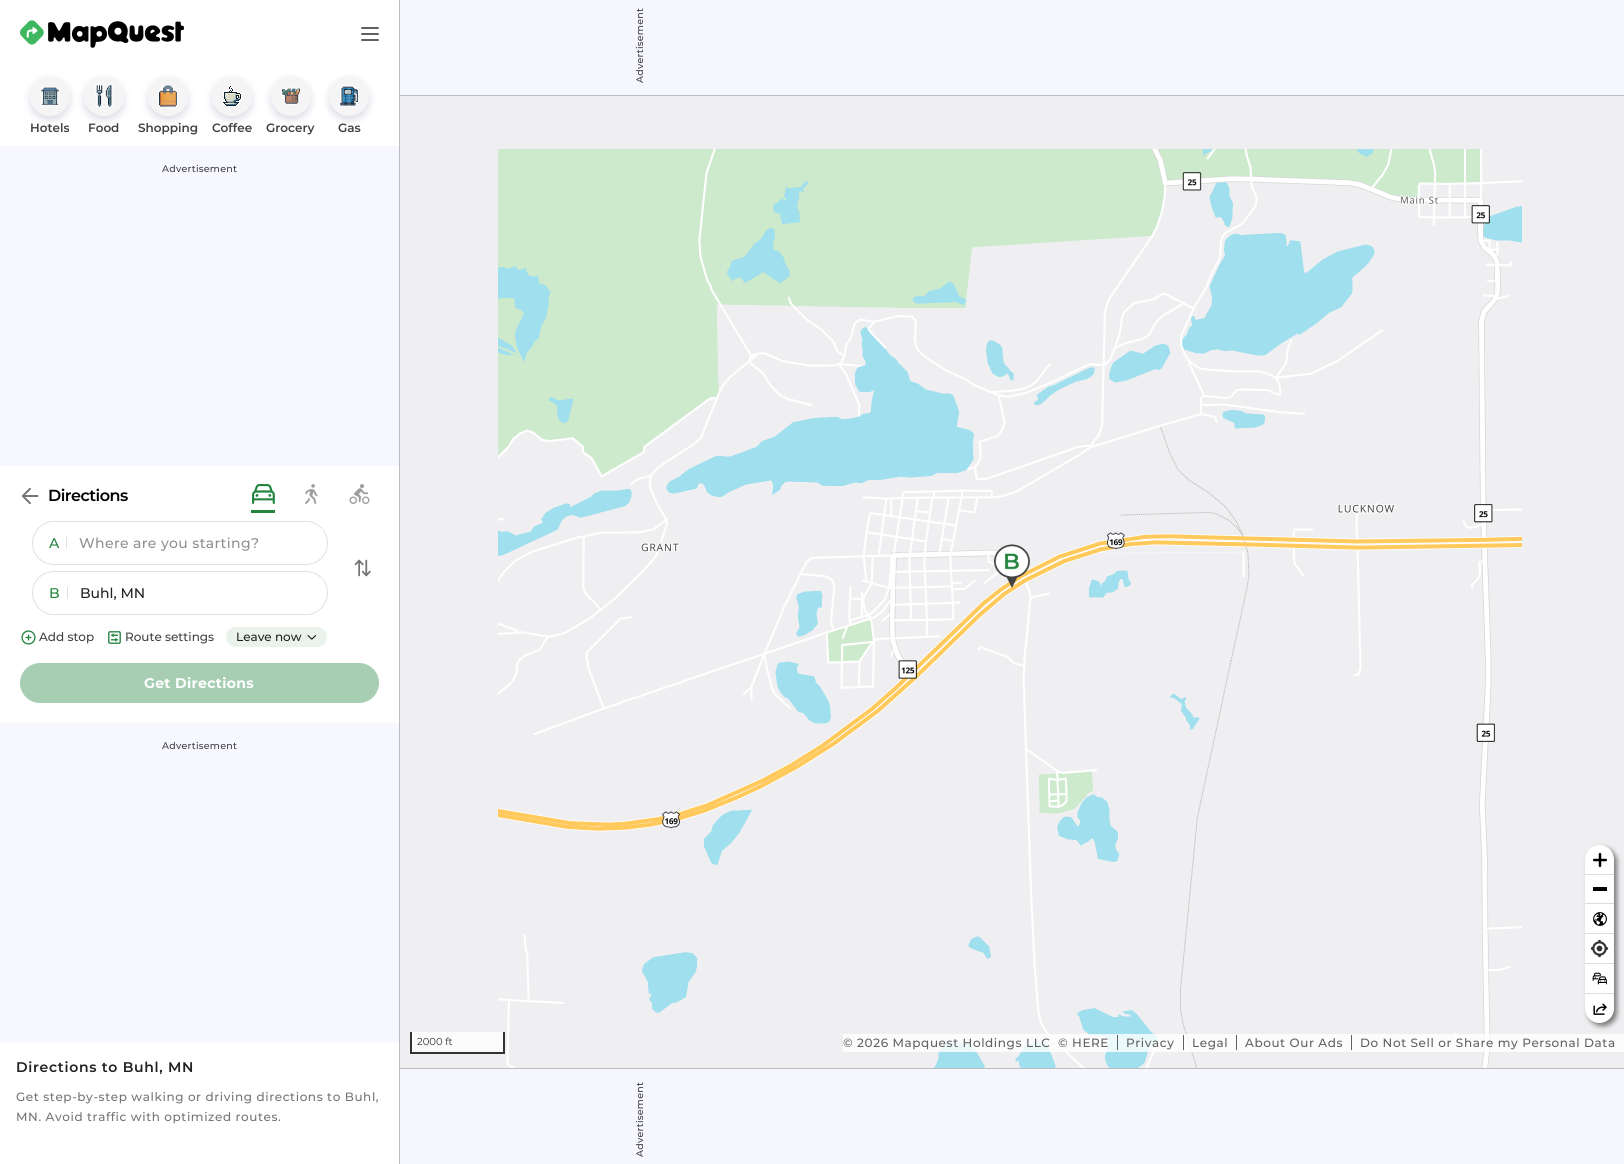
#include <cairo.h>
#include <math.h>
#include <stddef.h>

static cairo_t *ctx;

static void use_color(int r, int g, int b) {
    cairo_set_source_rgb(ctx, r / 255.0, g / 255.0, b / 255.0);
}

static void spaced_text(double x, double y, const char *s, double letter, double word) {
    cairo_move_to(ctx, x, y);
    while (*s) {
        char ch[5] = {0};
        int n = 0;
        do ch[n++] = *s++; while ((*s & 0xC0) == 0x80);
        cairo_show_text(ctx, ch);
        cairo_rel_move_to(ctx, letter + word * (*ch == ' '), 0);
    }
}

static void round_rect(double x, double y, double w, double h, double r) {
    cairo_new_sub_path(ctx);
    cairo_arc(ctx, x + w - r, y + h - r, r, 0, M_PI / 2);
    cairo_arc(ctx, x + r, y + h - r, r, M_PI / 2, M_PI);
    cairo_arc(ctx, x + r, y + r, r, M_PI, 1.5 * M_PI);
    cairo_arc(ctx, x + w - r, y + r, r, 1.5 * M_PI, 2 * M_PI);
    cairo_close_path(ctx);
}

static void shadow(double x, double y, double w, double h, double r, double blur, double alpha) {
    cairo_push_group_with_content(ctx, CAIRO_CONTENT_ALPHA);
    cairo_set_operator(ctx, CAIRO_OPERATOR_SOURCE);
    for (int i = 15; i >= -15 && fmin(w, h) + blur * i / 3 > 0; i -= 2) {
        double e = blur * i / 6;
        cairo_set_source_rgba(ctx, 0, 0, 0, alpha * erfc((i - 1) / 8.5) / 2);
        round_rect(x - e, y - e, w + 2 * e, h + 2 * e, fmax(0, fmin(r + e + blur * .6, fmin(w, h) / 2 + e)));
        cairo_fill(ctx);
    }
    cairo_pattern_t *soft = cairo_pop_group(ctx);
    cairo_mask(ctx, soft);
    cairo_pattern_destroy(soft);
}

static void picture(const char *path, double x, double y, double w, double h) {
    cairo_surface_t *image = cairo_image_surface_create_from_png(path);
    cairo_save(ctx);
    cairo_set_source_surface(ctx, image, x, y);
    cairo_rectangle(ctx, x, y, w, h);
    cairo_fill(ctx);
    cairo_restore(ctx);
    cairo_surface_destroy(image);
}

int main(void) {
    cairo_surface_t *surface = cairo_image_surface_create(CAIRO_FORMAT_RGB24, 1624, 1164);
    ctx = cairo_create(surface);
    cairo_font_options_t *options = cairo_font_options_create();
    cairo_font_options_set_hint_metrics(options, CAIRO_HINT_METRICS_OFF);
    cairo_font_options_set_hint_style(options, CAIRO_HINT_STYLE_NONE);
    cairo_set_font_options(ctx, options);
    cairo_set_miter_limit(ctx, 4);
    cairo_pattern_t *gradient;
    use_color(255, 255, 255);
    cairo_paint(ctx);
    use_color(246, 246, 255);
    cairo_rectangle(ctx, 400, 0, 1224, 95);
    cairo_fill(ctx);
    use_color(189, 189, 189);
    cairo_rectangle(ctx, 400, 95, 1224, 1);
    cairo_fill(ctx);
    cairo_select_font_face(ctx, "Montserrat Medium", CAIRO_FONT_SLANT_NORMAL, CAIRO_FONT_WEIGHT_NORMAL);
    cairo_set_font_size(ctx, 9.5);
    use_color(66, 66, 66);
    cairo_save(ctx);
    cairo_translate(ctx, 643, 83);
    cairo_rotate(ctx, -90 * M_PI / 180);
    spaced_text(0, 0, "Advertisement", 0.25, 0);
    cairo_restore(ctx);
    use_color(189, 189, 189);
    cairo_rectangle(ctx, 399, 0, 1, 1164);
    cairo_fill(ctx);
    picture("img1.png", 20, 20, 164, 28);
    picture("img2.png", 361, 27, 18, 14);
    use_color(13, 22, 96);
    shadow(30, 80, 40, 40, 20, 4, 0.15);
    use_color(245, 245, 245);
    cairo_arc(ctx, 50, 96, 20, 0, 2 * M_PI);
    cairo_fill(ctx);
    picture("img3.png", 40, 86, 20, 20);
    cairo_select_font_face(ctx, "Montserrat SemiBold", CAIRO_FONT_SLANT_NORMAL, CAIRO_FONT_WEIGHT_NORMAL);
    cairo_set_font_size(ctx, 12);
    use_color(66, 66, 66);
    cairo_move_to(ctx, 30, 132);
    cairo_show_text(ctx, "Hotels");
    use_color(13, 22, 96);
    shadow(84, 80, 40, 40, 20, 4, 0.15);
    use_color(245, 245, 245);
    cairo_arc(ctx, 104, 96, 20, 0, 2 * M_PI);
    cairo_fill(ctx);
    picture("img4.png", 95, 84, 18, 24);
    use_color(66, 66, 66);
    cairo_move_to(ctx, 88, 132);
    cairo_show_text(ctx, "Food");
    use_color(13, 22, 96);
    shadow(148, 80, 40, 40, 20, 4, 0.15);
    use_color(245, 245, 245);
    cairo_arc(ctx, 168, 96, 20, 0, 2 * M_PI);
    cairo_fill(ctx);
    picture("img5.png", 158, 84, 20, 24);
    use_color(66, 66, 66);
    cairo_move_to(ctx, 138, 132);
    cairo_show_text(ctx, "Shopping");
    use_color(13, 22, 96);
    shadow(212, 80, 40, 40, 20, 4, 0.15);
    use_color(245, 245, 245);
    cairo_arc(ctx, 232, 96, 20, 0, 2 * M_PI);
    cairo_fill(ctx);
    picture("img6.png", 222, 85, 20, 22);
    use_color(66, 66, 66);
    cairo_move_to(ctx, 212, 132);
    cairo_show_text(ctx, "Coffee");
    use_color(13, 22, 96);
    shadow(271, 80, 40, 40, 20, 4, 0.15);
    use_color(245, 245, 245);
    cairo_arc(ctx, 291, 96, 20, 0, 2 * M_PI);
    cairo_fill(ctx);
    picture("img7.png", 281, 87, 20, 18);
    use_color(66, 66, 66);
    cairo_move_to(ctx, 266, 132);
    cairo_show_text(ctx, "Grocery");
    use_color(13, 22, 96);
    shadow(329, 80, 40, 40, 20, 4, 0.15);
    use_color(245, 245, 245);
    cairo_arc(ctx, 349, 96, 20, 0, 2 * M_PI);
    cairo_fill(ctx);
    picture("img8.png", 339, 85, 20, 22);
    use_color(66, 66, 66);
    cairo_move_to(ctx, 338, 132);
    cairo_show_text(ctx, "Gas");
    use_color(247, 247, 255);
    cairo_rectangle(ctx, 0, 146, 399, 320);
    cairo_fill(ctx);
    cairo_select_font_face(ctx, "Montserrat Medium", CAIRO_FONT_SLANT_NORMAL, CAIRO_FONT_WEIGHT_NORMAL);
    cairo_set_font_size(ctx, 9.5);
    use_color(66, 66, 66);
    spaced_text(162, 172, "Advertisement", 0.25, 0);
    picture("img9.png", 21, 487, 18, 18);
    cairo_select_font_face(ctx, "Montserrat SemiBold", CAIRO_FONT_SLANT_NORMAL, CAIRO_FONT_WEIGHT_NORMAL);
    cairo_set_font_size(ctx, 16);
    use_color(0, 0, 0);
    spaced_text(48, 501, "Directions", -0.5, 0);
    use_color(35, 132, 64);
    cairo_rectangle(ctx, 251, 510, 24, 3);
    cairo_fill(ctx);
    picture("img10.png", 252, 484, 23, 20);
    picture("img11.png", 305, 484, 13, 20);
    picture("img12.png", 349, 484, 21, 20);
    round_rect(32.5, 521.5, 295, 43, 21.5);
    use_color(224, 224, 224);
    cairo_set_line_width(ctx, 1);
    cairo_stroke(ctx);
    cairo_select_font_face(ctx, "Montserrat Medium", CAIRO_FONT_SLANT_NORMAL, CAIRO_FONT_WEIGHT_NORMAL);
    cairo_set_font_size(ctx, 14);
    use_color(35, 132, 64);
    cairo_move_to(ctx, 49, 548);
    cairo_show_text(ctx, "A");
    use_color(224, 224, 224);
    cairo_rectangle(ctx, 66, 537, 1, 12);
    cairo_fill(ctx);
    use_color(144, 144, 144);
    spaced_text(79, 548, "Where are you starting?", 0.35, 0);
    gradient = cairo_pattern_create_linear(323, 543, 275, 543);
    cairo_pattern_add_color_stop_rgba(gradient, 0, 1, 1, 1, 1);
    cairo_pattern_add_color_stop_rgba(gradient, 0.6, 1, 1, 1, 0.7);
    cairo_pattern_add_color_stop_rgba(gradient, 1, 1, 1, 1, 0);
    cairo_set_source(ctx, gradient);
    cairo_pattern_destroy(gradient);
    cairo_rectangle(ctx, 322, 529, 1, 27);
    cairo_fill(ctx);
    picture("img13.png", 354, 559, 17, 18);
    round_rect(32.5, 571.5, 295, 43, 21.5);
    use_color(224, 224, 224);
    cairo_stroke(ctx);
    use_color(35, 132, 64);
    cairo_move_to(ctx, 49, 598);
    cairo_show_text(ctx, "B");
    use_color(224, 224, 224);
    cairo_rectangle(ctx, 67, 587, 1, 12);
    cairo_fill(ctx);
    use_color(33, 33, 33);
    cairo_move_to(ctx, 80, 598);
    cairo_show_text(ctx, "Buhl, MN");
    gradient = cairo_pattern_create_linear(323, 593, 275, 593);
    cairo_pattern_add_color_stop_rgba(gradient, 0, 1, 1, 1, 1);
    cairo_pattern_add_color_stop_rgba(gradient, 0.6, 1, 1, 1, 0.7);
    cairo_pattern_add_color_stop_rgba(gradient, 1, 1, 1, 1, 0);
    cairo_set_source(ctx, gradient);
    cairo_pattern_destroy(gradient);
    cairo_rectangle(ctx, 322, 579, 1, 27);
    cairo_fill(ctx);
    picture("img14.png", 21, 630, 15, 15);
    cairo_set_font_size(ctx, 12);
    use_color(66, 66, 66);
    cairo_move_to(ctx, 39, 641);
    cairo_show_text(ctx, "Add stop");
    picture("img15.png", 108, 631, 13, 13);
    cairo_move_to(ctx, 125, 641);
    cairo_show_text(ctx, "Route settings");
    use_color(233, 243, 236);
    round_rect(226, 627, 101, 20, 10);
    cairo_fill(ctx);
    use_color(33, 33, 33);
    cairo_move_to(ctx, 236, 641);
    cairo_show_text(ctx, "Leave now");
    picture("img16.png", 307, 635, 10, 5);
    use_color(167, 206, 179);
    round_rect(20, 663, 359, 40, 20);
    cairo_fill(ctx);
    cairo_select_font_face(ctx, "Montserrat", CAIRO_FONT_SLANT_NORMAL, CAIRO_FONT_WEIGHT_BOLD);
    cairo_set_font_size(ctx, 14);
    use_color(255, 255, 255);
    spaced_text(144, 688, "Get Directions", 0.35, 0);
    use_color(247, 247, 255);
    cairo_rectangle(ctx, 0, 723, 399, 320);
    cairo_fill(ctx);
    cairo_select_font_face(ctx, "Montserrat Medium", CAIRO_FONT_SLANT_NORMAL, CAIRO_FONT_WEIGHT_NORMAL);
    cairo_set_font_size(ctx, 9.5);
    use_color(66, 66, 66);
    spaced_text(162, 749, "Advertisement", 0.25, 0);
    cairo_select_font_face(ctx, "Montserrat SemiBold", CAIRO_FONT_SLANT_NORMAL, CAIRO_FONT_WEIGHT_NORMAL);
    cairo_set_font_size(ctx, 14);
    use_color(33, 33, 33);
    spaced_text(16, 1072, "Directions to Buhl, MN", 0.7, 0);
    cairo_select_font_face(ctx, "Montserrat Medium", CAIRO_FONT_SLANT_NORMAL, CAIRO_FONT_WEIGHT_NORMAL);
    cairo_set_font_size(ctx, 12);
    use_color(117, 117, 117);
    spaced_text(16, 1101, "Get step-by-step walking or driving directions to Buhl,", 0.6, 0);
    spaced_text(16, 1121, "MN. Avoid traffic with optimized routes.", 0.6, 0);
    picture("img17.png", 400, 96, 1224, 972);
    use_color(0, 0, 0);
    shadow(1588, 848, 29, 178, 14.5, 2.5, 0.5);
    use_color(255, 255, 255);
    round_rect(1585, 845, 29, 178, 14.5);
    cairo_fill(ctx);
    use_color(221, 221, 221);
    cairo_rectangle(ctx, 1585, 903, 29, 1);
    cairo_fill(ctx);
    picture("img18.png", 1593, 853, 14, 14);
    cairo_rectangle(ctx, 1585, 874, 29, 1);
    cairo_fill(ctx);
    use_color(0, 0, 0);
    cairo_rectangle(ctx, 1593, 887, 14, 4);
    cairo_fill(ctx);
    use_color(221, 221, 221);
    cairo_rectangle(ctx, 1585, 933, 29, 1);
    cairo_fill(ctx);
    picture("img19.png", 1593, 912, 14, 14);
    cairo_rectangle(ctx, 1585, 963, 29, 1);
    cairo_fill(ctx);
    picture("img20.png", 1590, 939, 19, 19);
    cairo_rectangle(ctx, 1585, 993, 29, 1);
    cairo_fill(ctx);
    picture("img21.png", 1592, 972, 15, 13);
    picture("img22.png", 1593, 1003, 14, 12);
    use_color(251, 251, 252);
    cairo_rectangle(ctx, 412, 1032, 91, 20);
    cairo_fill(ctx);
    use_color(51, 51, 51);
    cairo_rectangle(ctx, 503, 1032, 2, 22);
    cairo_fill(ctx);
    cairo_rectangle(ctx, 410, 1052, 95, 2);
    cairo_fill(ctx);
    cairo_rectangle(ctx, 410, 1032, 2, 22);
    cairo_fill(ctx);
    cairo_select_font_face(ctx, "Montserrat", CAIRO_FONT_SLANT_NORMAL, CAIRO_FONT_WEIGHT_NORMAL);
    cairo_set_font_size(ctx, 10);
    cairo_move_to(ctx, 417, 1045);
    cairo_show_text(ctx, "2000 ft");
    cairo_set_source_rgba(ctx, 1, 1, 1, 0.8);
    cairo_rectangle(ctx, 843, 1034, 781, 18);
    cairo_fill(ctx);
    cairo_select_font_face(ctx, "Montserrat Medium", CAIRO_FONT_SLANT_NORMAL, CAIRO_FONT_WEIGHT_NORMAL);
    cairo_set_font_size(ctx, 12);
    use_color(97, 97, 97);
    spaced_text(843, 1047, "© 2026 Mapquest Holdings LLC", 0.6, 0);
    cairo_rectangle(ctx, 1117, 1035, 1, 15);
    cairo_fill(ctx);
    spaced_text(1058, 1047, "© HERE", 0.6, 0);
    cairo_rectangle(ctx, 1183, 1035, 1, 15);
    cairo_fill(ctx);
    spaced_text(1126, 1047, "Privacy", 0.6, 0);
    cairo_rectangle(ctx, 1236, 1035, 1, 15);
    cairo_fill(ctx);
    spaced_text(1192, 1047, "Legal", 0.6, 0);
    cairo_rectangle(ctx, 1351, 1035, 1, 15);
    cairo_fill(ctx);
    spaced_text(1245, 1047, "About Our Ads", 0.6, 0);
    spaced_text(1360, 1047, "Do Not Sell or Share my Personal Data", 0.6, 0);
    use_color(246, 246, 255);
    cairo_rectangle(ctx, 400, 1069, 1224, 95);
    cairo_fill(ctx);
    use_color(189, 189, 189);
    cairo_rectangle(ctx, 400, 1068, 1224, 1);
    cairo_fill(ctx);
    cairo_set_font_size(ctx, 9.5);
    use_color(66, 66, 66);
    cairo_save(ctx);
    cairo_translate(ctx, 643, 1157);
    cairo_rotate(ctx, -90 * M_PI / 180);
    spaced_text(0, 0, "Advertisement", 0.25, 0);
    cairo_restore(ctx);
    cairo_surface_write_to_png(surface, "result.png");
    cairo_font_options_destroy(options);
    cairo_destroy(ctx);
    cairo_surface_destroy(surface);
    return 0;
}
